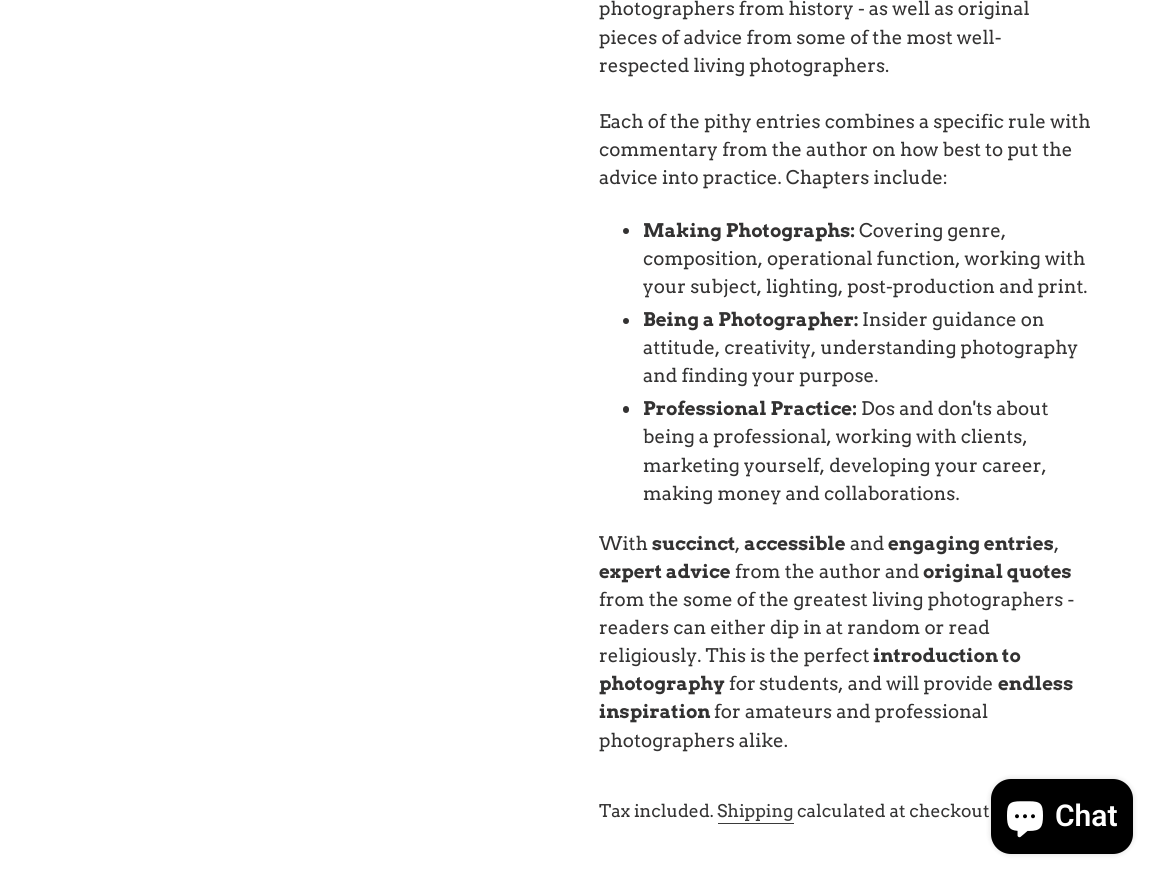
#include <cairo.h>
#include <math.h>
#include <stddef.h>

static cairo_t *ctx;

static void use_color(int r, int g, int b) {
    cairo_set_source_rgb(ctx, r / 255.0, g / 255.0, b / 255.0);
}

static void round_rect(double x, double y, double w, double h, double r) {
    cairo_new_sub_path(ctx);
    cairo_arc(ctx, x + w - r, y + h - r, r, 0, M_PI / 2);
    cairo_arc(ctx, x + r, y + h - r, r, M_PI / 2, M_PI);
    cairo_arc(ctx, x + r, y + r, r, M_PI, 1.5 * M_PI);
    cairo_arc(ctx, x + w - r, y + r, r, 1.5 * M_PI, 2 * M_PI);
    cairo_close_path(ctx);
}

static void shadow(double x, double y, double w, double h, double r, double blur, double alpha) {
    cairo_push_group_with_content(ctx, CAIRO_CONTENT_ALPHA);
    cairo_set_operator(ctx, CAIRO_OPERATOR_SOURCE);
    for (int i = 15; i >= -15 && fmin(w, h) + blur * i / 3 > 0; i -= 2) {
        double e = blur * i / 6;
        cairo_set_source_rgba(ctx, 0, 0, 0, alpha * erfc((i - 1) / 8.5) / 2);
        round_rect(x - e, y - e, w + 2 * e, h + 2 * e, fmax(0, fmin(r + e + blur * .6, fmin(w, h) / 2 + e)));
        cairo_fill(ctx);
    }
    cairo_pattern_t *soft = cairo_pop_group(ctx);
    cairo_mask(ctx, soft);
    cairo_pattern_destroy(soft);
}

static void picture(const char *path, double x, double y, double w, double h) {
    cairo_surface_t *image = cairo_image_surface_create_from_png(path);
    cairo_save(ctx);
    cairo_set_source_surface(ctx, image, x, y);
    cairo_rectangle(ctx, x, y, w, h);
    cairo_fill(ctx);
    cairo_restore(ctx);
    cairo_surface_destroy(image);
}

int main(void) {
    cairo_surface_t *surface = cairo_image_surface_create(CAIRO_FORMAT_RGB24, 1159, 880);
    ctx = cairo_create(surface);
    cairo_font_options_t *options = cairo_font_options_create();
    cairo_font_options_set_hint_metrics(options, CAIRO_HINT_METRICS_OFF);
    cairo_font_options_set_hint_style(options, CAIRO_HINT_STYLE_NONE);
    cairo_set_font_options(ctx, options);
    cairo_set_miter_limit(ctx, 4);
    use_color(255, 255, 255);
    cairo_paint(ctx);
    cairo_select_font_face(ctx, "Arvo", CAIRO_FONT_SLANT_NORMAL, CAIRO_FONT_WEIGHT_NORMAL);
    cairo_set_font_size(ctx, 18.75);
    use_color(51, 50, 50);
    cairo_move_to(ctx, 599, 15);
    cairo_show_text(ctx, "photographers from history - as well as original");
    cairo_move_to(ctx, 599, 44);
    cairo_show_text(ctx, "pieces of advice from some of the most well-");
    cairo_move_to(ctx, 599, 72);
    cairo_show_text(ctx, "respected living photographers.");
    cairo_move_to(ctx, 599, 128);
    cairo_show_text(ctx, "Each of the pithy entries combines a specific rule with");
    cairo_move_to(ctx, 599, 156);
    cairo_show_text(ctx, "commentary from the author on how best to put the");
    cairo_move_to(ctx, 599, 184);
    cairo_show_text(ctx, "advice into practice. Chapters include:");
    cairo_new_path(ctx);
    cairo_arc(ctx, 626, 231, 3, 0, 2 * M_PI);
    cairo_fill(ctx);
    cairo_select_font_face(ctx, "Arvo", CAIRO_FONT_SLANT_NORMAL, CAIRO_FONT_WEIGHT_BOLD);
    cairo_move_to(ctx, 643, 237);
    cairo_show_text(ctx, "Making Photographs:");
    cairo_select_font_face(ctx, "Arvo", CAIRO_FONT_SLANT_NORMAL, CAIRO_FONT_WEIGHT_NORMAL);
    cairo_move_to(ctx, 859, 237);
    cairo_show_text(ctx, "Covering genre,");
    cairo_move_to(ctx, 643, 265);
    cairo_show_text(ctx, "composition, operational function, working with");
    cairo_move_to(ctx, 643, 293);
    cairo_show_text(ctx, "your subject, lighting, post-production and print.");
    cairo_new_path(ctx);
    cairo_arc(ctx, 626, 321, 3, 0, 2 * M_PI);
    cairo_fill(ctx);
    cairo_select_font_face(ctx, "Arvo", CAIRO_FONT_SLANT_NORMAL, CAIRO_FONT_WEIGHT_BOLD);
    cairo_move_to(ctx, 643, 326);
    cairo_show_text(ctx, "Being a Photographer:");
    cairo_select_font_face(ctx, "Arvo", CAIRO_FONT_SLANT_NORMAL, CAIRO_FONT_WEIGHT_NORMAL);
    cairo_move_to(ctx, 862, 326);
    cairo_show_text(ctx, "Insider guidance on");
    cairo_move_to(ctx, 643, 354);
    cairo_show_text(ctx, "attitude, creativity, understanding photography");
    cairo_move_to(ctx, 643, 382);
    cairo_show_text(ctx, "and finding your purpose.");
    round_rect(623, 406, 6, 7, 3);
    cairo_fill(ctx);
    cairo_select_font_face(ctx, "Arvo", CAIRO_FONT_SLANT_NORMAL, CAIRO_FONT_WEIGHT_BOLD);
    cairo_move_to(ctx, 643, 415);
    cairo_show_text(ctx, "Professional Practice:");
    cairo_select_font_face(ctx, "Arvo", CAIRO_FONT_SLANT_NORMAL, CAIRO_FONT_WEIGHT_NORMAL);
    cairo_move_to(ctx, 861, 415);
    cairo_show_text(ctx, "Dos and don'ts about");
    cairo_move_to(ctx, 643, 443);
    cairo_show_text(ctx, "being a professional, working with clients,");
    cairo_move_to(ctx, 643, 472);
    cairo_show_text(ctx, "marketing yourself, developing your career,");
    cairo_move_to(ctx, 643, 500);
    cairo_show_text(ctx, "making money and collaborations.");
    cairo_move_to(ctx, 599, 550);
    cairo_show_text(ctx, "With");
    cairo_select_font_face(ctx, "Arvo", CAIRO_FONT_SLANT_NORMAL, CAIRO_FONT_WEIGHT_BOLD);
    cairo_move_to(ctx, 652, 550);
    cairo_show_text(ctx, "succinct");
    cairo_select_font_face(ctx, "Arvo", CAIRO_FONT_SLANT_NORMAL, CAIRO_FONT_WEIGHT_NORMAL);
    cairo_move_to(ctx, 735, 550);
    cairo_show_text(ctx, ",");
    cairo_select_font_face(ctx, "Arvo", CAIRO_FONT_SLANT_NORMAL, CAIRO_FONT_WEIGHT_BOLD);
    cairo_move_to(ctx, 744, 550);
    cairo_show_text(ctx, "accessible");
    cairo_select_font_face(ctx, "Arvo", CAIRO_FONT_SLANT_NORMAL, CAIRO_FONT_WEIGHT_NORMAL);
    cairo_move_to(ctx, 850, 550);
    cairo_show_text(ctx, "and");
    cairo_select_font_face(ctx, "Arvo", CAIRO_FONT_SLANT_NORMAL, CAIRO_FONT_WEIGHT_BOLD);
    cairo_move_to(ctx, 888, 550);
    cairo_show_text(ctx, "engaging entries");
    cairo_select_font_face(ctx, "Arvo", CAIRO_FONT_SLANT_NORMAL, CAIRO_FONT_WEIGHT_NORMAL);
    cairo_move_to(ctx, 1054, 550);
    cairo_show_text(ctx, ",");
    cairo_select_font_face(ctx, "Arvo", CAIRO_FONT_SLANT_NORMAL, CAIRO_FONT_WEIGHT_BOLD);
    cairo_move_to(ctx, 599, 578);
    cairo_show_text(ctx, "expert advice");
    cairo_select_font_face(ctx, "Arvo", CAIRO_FONT_SLANT_NORMAL, CAIRO_FONT_WEIGHT_NORMAL);
    cairo_move_to(ctx, 735, 578);
    cairo_show_text(ctx, "from the author and");
    cairo_select_font_face(ctx, "Arvo", CAIRO_FONT_SLANT_NORMAL, CAIRO_FONT_WEIGHT_BOLD);
    cairo_move_to(ctx, 923, 578);
    cairo_show_text(ctx, "original quotes");
    cairo_select_font_face(ctx, "Arvo", CAIRO_FONT_SLANT_NORMAL, CAIRO_FONT_WEIGHT_NORMAL);
    cairo_move_to(ctx, 599, 606);
    cairo_show_text(ctx, "from the some of the greatest living photographers -");
    cairo_move_to(ctx, 599, 634);
    cairo_show_text(ctx, "readers can either dip in at random or read");
    cairo_move_to(ctx, 599, 662);
    cairo_show_text(ctx, "religiously. This is the perfect");
    cairo_select_font_face(ctx, "Arvo", CAIRO_FONT_SLANT_NORMAL, CAIRO_FONT_WEIGHT_BOLD);
    cairo_move_to(ctx, 873, 662);
    cairo_show_text(ctx, "introduction to");
    cairo_move_to(ctx, 599, 690);
    cairo_show_text(ctx, "photography");
    cairo_select_font_face(ctx, "Arvo", CAIRO_FONT_SLANT_NORMAL, CAIRO_FONT_WEIGHT_NORMAL);
    cairo_move_to(ctx, 729, 690);
    cairo_show_text(ctx, "for");
    cairo_move_to(ctx, 759, 690);
    cairo_show_text(ctx, "students, and will provide");
    cairo_select_font_face(ctx, "Arvo", CAIRO_FONT_SLANT_NORMAL, CAIRO_FONT_WEIGHT_BOLD);
    cairo_move_to(ctx, 998, 690);
    cairo_show_text(ctx, "endless");
    cairo_move_to(ctx, 599, 718);
    cairo_show_text(ctx, "inspiration");
    cairo_select_font_face(ctx, "Arvo", CAIRO_FONT_SLANT_NORMAL, CAIRO_FONT_WEIGHT_NORMAL);
    cairo_move_to(ctx, 714, 718);
    cairo_show_text(ctx, "for amateurs and professional");
    cairo_move_to(ctx, 599, 747);
    cairo_show_text(ctx, "photographers alike.");
    cairo_set_font_size(ctx, 17.5);
    cairo_move_to(ctx, 599, 817);
    cairo_show_text(ctx, "Tax included.");
    use_color(58, 58, 58);
    cairo_move_to(ctx, 717, 817);
    cairo_show_text(ctx, "Shipping");
    cairo_rectangle(ctx, 718, 823, 76, 1);
    cairo_fill(ctx);
    use_color(51, 50, 50);
    cairo_move_to(ctx, 797, 817);
    cairo_show_text(ctx, "calculated at checkout");
    use_color(0, 0, 0);
    shadow(991, 779, 142, 75, 20, 3, 0.15);
    use_color(0, 0, 0);
    round_rect(991, 779, 142, 75, 20);
    cairo_fill(ctx);
    picture("img1.png", 1007, 801, 36, 37);
    cairo_select_font_face(ctx, "Roboto SemiBold", CAIRO_FONT_SLANT_NORMAL, CAIRO_FONT_WEIGHT_NORMAL);
    cairo_set_font_size(ctx, 30);
    use_color(255, 255, 255);
    cairo_move_to(ctx, 1055, 826);
    cairo_show_text(ctx, "Chat");
    cairo_surface_write_to_png(surface, "result.png");
    cairo_font_options_destroy(options);
    cairo_destroy(ctx);
    cairo_surface_destroy(surface);
    return 0;
}
